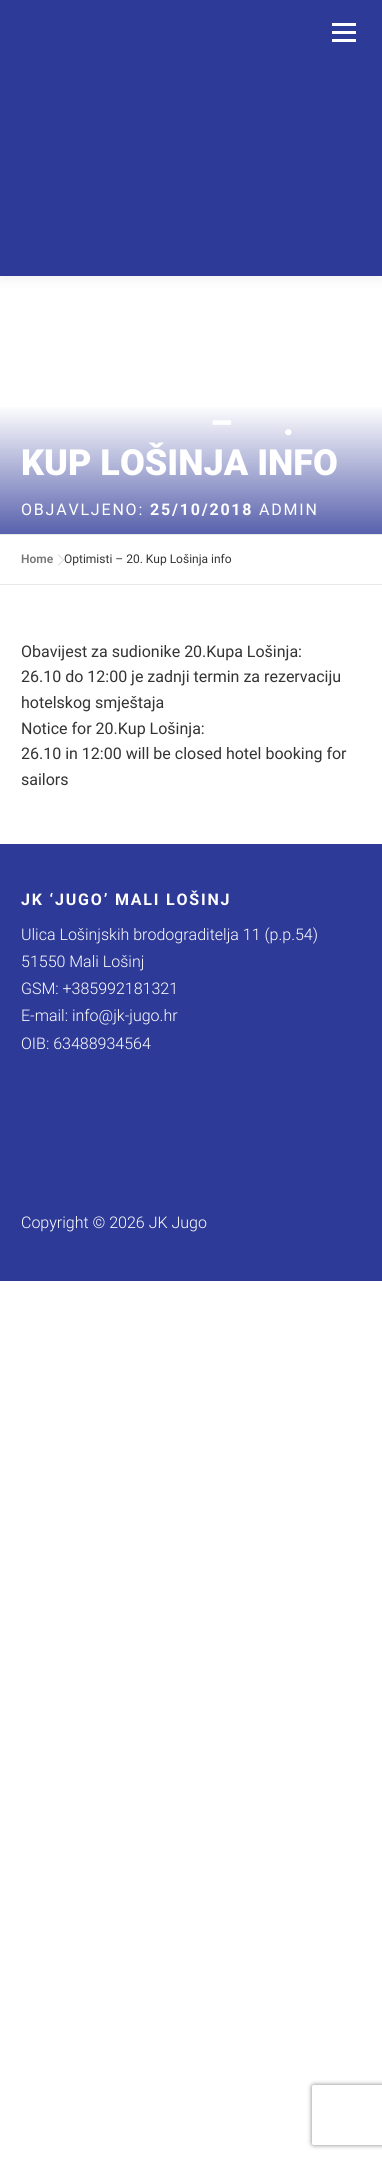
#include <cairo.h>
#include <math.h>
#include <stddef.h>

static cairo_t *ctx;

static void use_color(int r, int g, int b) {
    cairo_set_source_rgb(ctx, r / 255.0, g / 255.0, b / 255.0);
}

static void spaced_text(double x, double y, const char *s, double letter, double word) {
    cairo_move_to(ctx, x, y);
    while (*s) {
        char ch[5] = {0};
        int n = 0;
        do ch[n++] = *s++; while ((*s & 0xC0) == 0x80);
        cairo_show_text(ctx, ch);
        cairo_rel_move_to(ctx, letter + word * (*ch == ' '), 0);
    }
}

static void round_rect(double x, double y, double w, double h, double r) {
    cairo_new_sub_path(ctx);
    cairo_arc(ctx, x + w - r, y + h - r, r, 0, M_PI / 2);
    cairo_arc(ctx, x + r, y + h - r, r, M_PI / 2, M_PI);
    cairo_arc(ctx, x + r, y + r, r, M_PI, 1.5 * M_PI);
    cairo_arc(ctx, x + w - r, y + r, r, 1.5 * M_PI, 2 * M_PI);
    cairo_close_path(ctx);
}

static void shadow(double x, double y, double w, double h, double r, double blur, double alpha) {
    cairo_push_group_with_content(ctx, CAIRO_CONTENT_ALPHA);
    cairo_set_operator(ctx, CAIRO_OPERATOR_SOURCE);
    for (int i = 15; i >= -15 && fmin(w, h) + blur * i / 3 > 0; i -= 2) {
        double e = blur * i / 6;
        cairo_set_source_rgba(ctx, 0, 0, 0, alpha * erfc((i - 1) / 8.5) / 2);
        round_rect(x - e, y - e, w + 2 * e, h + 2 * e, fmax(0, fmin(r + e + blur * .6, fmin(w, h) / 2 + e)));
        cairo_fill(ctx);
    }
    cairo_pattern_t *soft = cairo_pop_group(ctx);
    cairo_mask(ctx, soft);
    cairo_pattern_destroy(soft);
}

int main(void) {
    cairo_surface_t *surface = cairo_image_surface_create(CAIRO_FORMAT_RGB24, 382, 2159);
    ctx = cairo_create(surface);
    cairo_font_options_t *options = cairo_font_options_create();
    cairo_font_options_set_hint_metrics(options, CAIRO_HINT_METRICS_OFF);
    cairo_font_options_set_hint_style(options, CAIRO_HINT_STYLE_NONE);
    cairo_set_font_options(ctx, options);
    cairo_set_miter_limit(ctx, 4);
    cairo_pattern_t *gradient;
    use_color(255, 255, 255);
    cairo_paint(ctx);
    use_color(50, 50, 50);
    shadow(0, 5, 382, 276, 0, 5, 0.06);
    use_color(46, 58, 151);
    cairo_rectangle(ctx, 0, 0, 382, 276);
    cairo_fill(ctx);
    use_color(255, 255, 255);
    cairo_rectangle(ctx, 332, 31, 24, 3);
    cairo_fill(ctx);
    cairo_rectangle(ctx, 332, 23, 24, 3);
    cairo_fill(ctx);
    cairo_rectangle(ctx, 332, 39, 24, 3);
    cairo_fill(ctx);
    gradient = cairo_pattern_create_linear(191, 405, 191, 534);
    cairo_pattern_add_color_stop_rgba(gradient, 0, 1, 1, 1, 1);
    cairo_pattern_add_color_stop_rgba(gradient, 1, 0.345, 0.38, 0.675, 1);
    cairo_set_source(ctx, gradient);
    cairo_pattern_destroy(gradient);
    cairo_rectangle(ctx, 0, 407, 382, 127);
    cairo_fill(ctx);
    cairo_select_font_face(ctx, "Roboto Black", CAIRO_FONT_SLANT_NORMAL, CAIRO_FONT_WEIGHT_NORMAL);
    cairo_set_font_size(ctx, 36);
    use_color(255, 255, 255);
    cairo_move_to(ctx, 210, 435);
    cairo_show_text(ctx, "–");
    cairo_move_to(ctx, 283, 435);
    cairo_show_text(ctx, ".");
    cairo_move_to(ctx, 21, 475);
    cairo_show_text(ctx, "KUP LOŠINJA INFO");
    cairo_select_font_face(ctx, "Roboto", CAIRO_FONT_SLANT_NORMAL, CAIRO_FONT_WEIGHT_NORMAL);
    cairo_set_font_size(ctx, 16);
    spaced_text(21, 515, "OBJAVLJENO:", 1.8, 0);
    cairo_select_font_face(ctx, "Roboto", CAIRO_FONT_SLANT_NORMAL, CAIRO_FONT_WEIGHT_BOLD);
    spaced_text(150, 515, "25/10/2018", 1.8, 0);
    cairo_select_font_face(ctx, "Roboto", CAIRO_FONT_SLANT_NORMAL, CAIRO_FONT_WEIGHT_NORMAL);
    spaced_text(259, 515, "ADMIN", 1.8, 0);
    use_color(233, 233, 233);
    cairo_rectangle(ctx, 0, 534, 382, 1);
    cairo_fill(ctx);
    cairo_rectangle(ctx, 0, 584, 382, 1);
    cairo_fill(ctx);
    cairo_select_font_face(ctx, "Roboto SemiBold", CAIRO_FONT_SLANT_NORMAL, CAIRO_FONT_WEIGHT_NORMAL);
    cairo_set_font_size(ctx, 12);
    use_color(119, 119, 119);
    cairo_move_to(ctx, 21, 563);
    cairo_show_text(ctx, "Home");
    cairo_set_source_rgba(ctx, 0, 0, 0, 0.2);
    cairo_new_path(ctx);
    cairo_move_to(ctx, 58, 566);
    cairo_line_to(ctx, 58, 554);
    cairo_line_to(ctx, 64, 560);
    cairo_close_path(ctx);
    cairo_fill(ctx);
    use_color(255, 255, 255);
    cairo_new_path(ctx);
    cairo_move_to(ctx, 58, 565);
    cairo_line_to(ctx, 58, 555);
    cairo_line_to(ctx, 63, 560);
    cairo_close_path(ctx);
    cairo_fill(ctx);
    cairo_select_font_face(ctx, "Roboto", CAIRO_FONT_SLANT_NORMAL, CAIRO_FONT_WEIGHT_NORMAL);
    use_color(51, 51, 51);
    cairo_move_to(ctx, 64, 563);
    cairo_show_text(ctx, "Optimisti – 20. Kup Lošinja info");
    cairo_set_font_size(ctx, 16);
    cairo_move_to(ctx, 21, 657);
    cairo_show_text(ctx, "Obavijest za sudionike 20.Kupa Lošinja:");
    cairo_move_to(ctx, 21, 682);
    cairo_show_text(ctx, "26.10 do 12:00 je zadnji termin za rezervaciju");
    cairo_move_to(ctx, 21, 708);
    cairo_show_text(ctx, "hotelskog smještaja");
    cairo_move_to(ctx, 21, 734);
    cairo_show_text(ctx, "Notice for 20.Kup Lošinja:");
    cairo_move_to(ctx, 21, 759);
    cairo_show_text(ctx, "26.10 in 12:00 will be closed hotel booking for");
    cairo_move_to(ctx, 21, 785);
    cairo_show_text(ctx, "sailors");
    use_color(46, 58, 151);
    cairo_rectangle(ctx, 0, 844, 382, 437);
    cairo_fill(ctx);
    cairo_select_font_face(ctx, "Roboto", CAIRO_FONT_SLANT_NORMAL, CAIRO_FONT_WEIGHT_BOLD);
    use_color(255, 255, 255);
    spaced_text(21, 905, "JK ‘JUGO’ MALI LOŠINJ", 1.8, 0);
    cairo_select_font_face(ctx, "Roboto Light", CAIRO_FONT_SLANT_NORMAL, CAIRO_FONT_WEIGHT_NORMAL);
    cairo_move_to(ctx, 21, 940);
    cairo_show_text(ctx, "Ulica Lošinjskih brodograditelja 11 (p.p.54)");
    cairo_move_to(ctx, 21, 967);
    cairo_show_text(ctx, "51550 Mali Lošinj");
    cairo_move_to(ctx, 21, 994);
    cairo_show_text(ctx, "GSM: +385992181321");
    cairo_move_to(ctx, 21, 1021);
    cairo_show_text(ctx, "E-mail: info@jk-jugo.hr");
    cairo_move_to(ctx, 21, 1049);
    cairo_show_text(ctx, "OIB: 63488934564");
    cairo_move_to(ctx, 21, 1228);
    cairo_show_text(ctx, "Copyright © 2026 JK Jugo");
    cairo_save(ctx);
    cairo_set_fill_rule(ctx, CAIRO_FILL_RULE_EVEN_ODD);
    cairo_new_path(ctx);
    cairo_move_to(ctx, 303, 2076);
    cairo_line_to(ctx, 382, 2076);
    cairo_line_to(ctx, 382, 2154);
    cairo_line_to(ctx, 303, 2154);
    cairo_close_path(ctx);
    cairo_move_to(ctx, 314, 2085);
    cairo_line_to(ctx, 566, 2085);
    cairo_curve_to(ctx, 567, 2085, 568, 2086, 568, 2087);
    cairo_line_to(ctx, 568, 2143);
    cairo_curve_to(ctx, 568, 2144, 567, 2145, 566, 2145);
    cairo_line_to(ctx, 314, 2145);
    cairo_curve_to(ctx, 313, 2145, 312, 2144, 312, 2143);
    cairo_line_to(ctx, 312, 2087);
    cairo_curve_to(ctx, 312, 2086, 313, 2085, 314, 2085);
    cairo_close_path(ctx);
    cairo_clip(ctx);
    use_color(128, 128, 128);
    shadow(312, 2085, 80, 60, 2, 2.5, 1);
    cairo_restore(ctx);
    cairo_surface_write_to_png(surface, "result.png");
    cairo_font_options_destroy(options);
    cairo_destroy(ctx);
    cairo_surface_destroy(surface);
    return 0;
}
